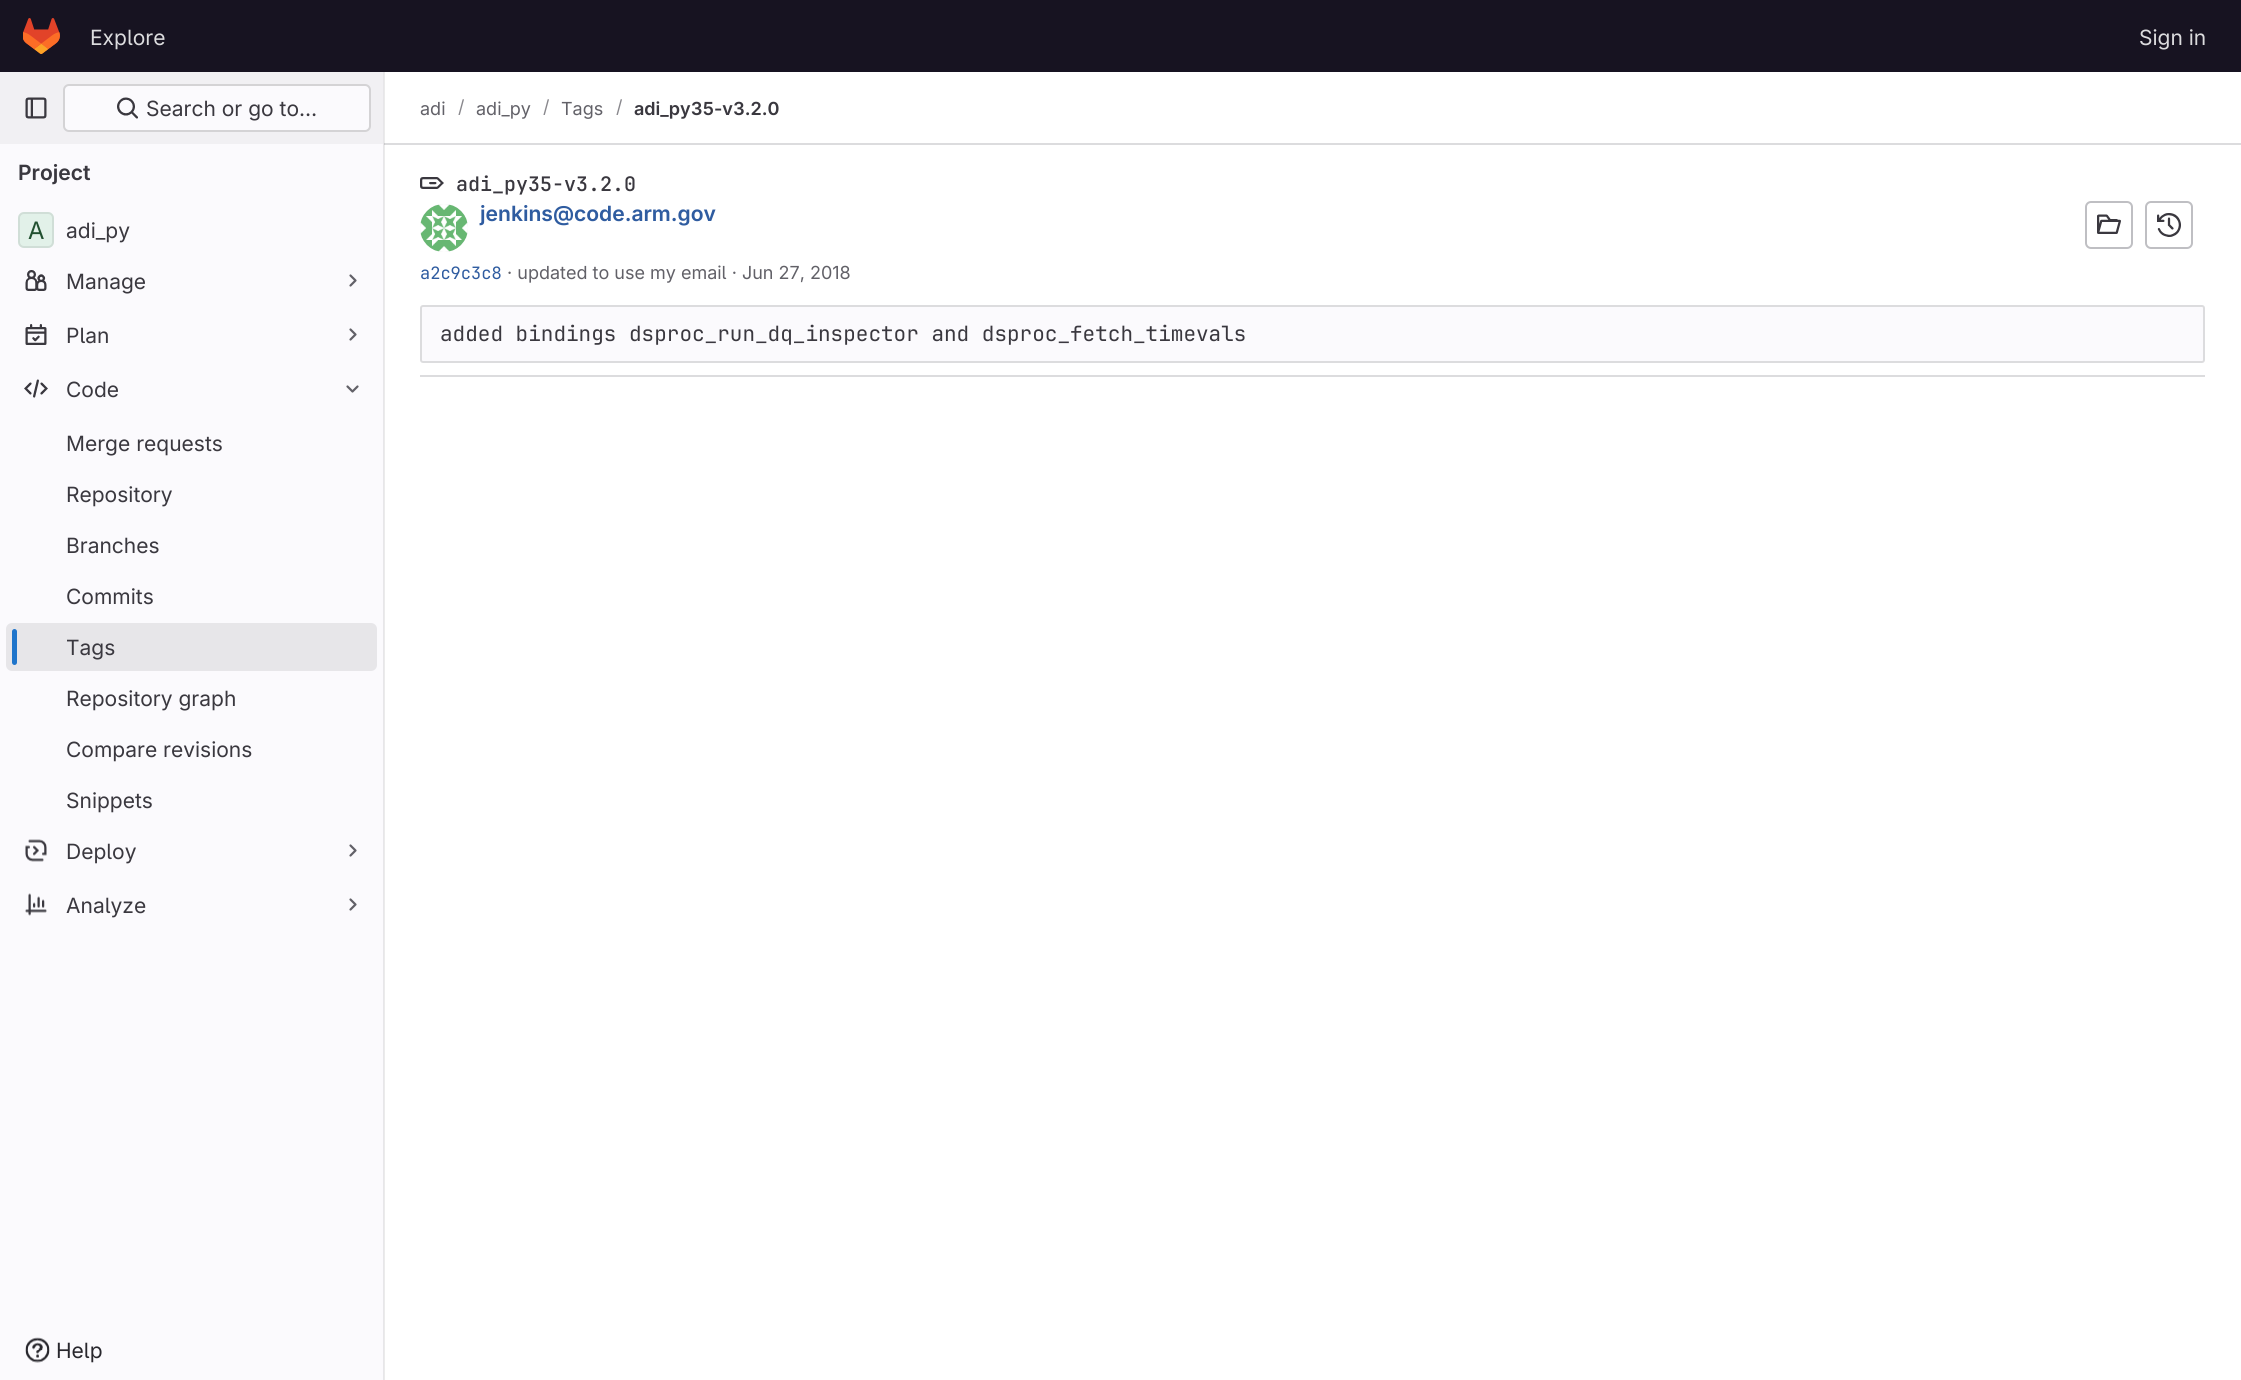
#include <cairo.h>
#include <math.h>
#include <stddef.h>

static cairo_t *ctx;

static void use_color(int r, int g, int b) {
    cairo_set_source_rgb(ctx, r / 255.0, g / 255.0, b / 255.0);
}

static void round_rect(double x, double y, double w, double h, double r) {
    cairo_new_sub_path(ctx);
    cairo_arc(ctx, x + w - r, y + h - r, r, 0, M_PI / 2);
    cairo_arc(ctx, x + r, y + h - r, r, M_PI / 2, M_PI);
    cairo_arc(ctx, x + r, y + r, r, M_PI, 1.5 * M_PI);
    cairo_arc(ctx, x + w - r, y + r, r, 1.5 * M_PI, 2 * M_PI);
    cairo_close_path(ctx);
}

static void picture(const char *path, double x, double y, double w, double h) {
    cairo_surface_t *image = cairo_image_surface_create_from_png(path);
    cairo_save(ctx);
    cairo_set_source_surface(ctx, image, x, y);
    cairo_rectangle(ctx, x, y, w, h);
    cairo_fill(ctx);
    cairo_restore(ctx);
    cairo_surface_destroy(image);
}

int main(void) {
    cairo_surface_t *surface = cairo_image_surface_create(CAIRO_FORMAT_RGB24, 2241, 1380);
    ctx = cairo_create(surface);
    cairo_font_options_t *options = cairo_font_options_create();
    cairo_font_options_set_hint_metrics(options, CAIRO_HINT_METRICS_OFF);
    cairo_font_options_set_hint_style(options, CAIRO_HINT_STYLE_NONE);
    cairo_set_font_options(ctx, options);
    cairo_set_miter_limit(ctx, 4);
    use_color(255, 255, 255);
    cairo_paint(ctx);
    use_color(235, 235, 235);
    cairo_rectangle(ctx, 384, 72, 1, 1308);
    cairo_fill(ctx);
    use_color(23, 19, 33);
    cairo_rectangle(ctx, 0, 0, 2241, 72);
    cairo_fill(ctx);
    picture("img1.png", 23, 18, 37, 36);
    cairo_select_font_face(ctx, "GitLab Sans", CAIRO_FONT_SLANT_NORMAL, CAIRO_FONT_WEIGHT_NORMAL);
    cairo_set_font_size(ctx, 21);
    use_color(220, 220, 222);
    cairo_move_to(ctx, 90, 45);
    cairo_show_text(ctx, "Explore");
    cairo_move_to(ctx, 2139, 45);
    cairo_show_text(ctx, "Sign in");
    use_color(251, 250, 253);
    cairo_rectangle(ctx, 0, 144, 383, 1236);
    cairo_fill(ctx);
    use_color(231, 230, 233);
    cairo_rectangle(ctx, 383, 72, 1, 1308);
    cairo_fill(ctx);
    use_color(241, 240, 243);
    cairo_rectangle(ctx, 0, 72, 383, 72);
    cairo_fill(ctx);
    picture("img2.png", 25, 97, 22, 22);
    use_color(251, 250, 253);
    round_rect(64, 85, 306, 46, 5);
    cairo_fill_preserve(ctx);
    use_color(212, 211, 213);
    cairo_stroke(ctx);
    picture("img3.png", 117, 97, 21, 22);
    use_color(58, 56, 63);
    cairo_move_to(ctx, 146, 116);
    cairo_show_text(ctx, "Search or go to…");
    cairo_select_font_face(ctx, "GitLab Sans SemiBold", CAIRO_FONT_SLANT_NORMAL, CAIRO_FONT_WEIGHT_NORMAL);
    cairo_move_to(ctx, 18, 180);
    cairo_show_text(ctx, "Project");
    use_color(226, 241, 233);
    round_rect(18, 212, 36, 36, 6);
    cairo_fill(ctx);
    round_rect(19, 213, 34, 34, 5);
    cairo_set_source_rgba(ctx, 0.02, 0.02, 0.024, 0.08);
    cairo_stroke(ctx);
    cairo_select_font_face(ctx, "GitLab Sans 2", CAIRO_FONT_SLANT_NORMAL, CAIRO_FONT_WEIGHT_NORMAL);
    cairo_set_font_size(ctx, 24);
    use_color(34, 81, 49);
    cairo_move_to(ctx, 28, 239);
    cairo_show_text(ctx, "A");
    cairo_select_font_face(ctx, "GitLab Sans", CAIRO_FONT_SLANT_NORMAL, CAIRO_FONT_WEIGHT_NORMAL);
    cairo_set_font_size(ctx, 21);
    use_color(58, 56, 63);
    cairo_move_to(ctx, 66, 238);
    cairo_show_text(ctx, "adi_py");
    picture("img4.png", 25, 270, 22, 21);
    cairo_move_to(ctx, 66, 289);
    cairo_show_text(ctx, "Manage");
    cairo_new_path(ctx);
    cairo_move_to(ctx, 350.5, 275.5);
    cairo_line_to(ctx, 355.5, 280.5);
    cairo_line_to(ctx, 350.5, 285.5);
    use_color(98, 97, 104);
    cairo_set_line_width(ctx, 2.2);
    cairo_set_line_cap(ctx, CAIRO_LINE_CAP_ROUND);
    cairo_set_line_join(ctx, CAIRO_LINE_JOIN_ROUND);
    cairo_stroke(ctx);
    picture("img5.png", 25, 324, 22, 21);
    use_color(58, 56, 63);
    cairo_move_to(ctx, 66, 343);
    cairo_show_text(ctx, "Plan");
    cairo_new_path(ctx);
    cairo_move_to(ctx, 350.5, 329.5);
    cairo_line_to(ctx, 355.5, 334.5);
    cairo_line_to(ctx, 350.5, 339.5);
    use_color(98, 97, 104);
    cairo_stroke(ctx);
    picture("img6.png", 24, 379, 24, 19);
    use_color(58, 56, 63);
    cairo_move_to(ctx, 66, 397);
    cairo_show_text(ctx, "Code");
    cairo_new_path(ctx);
    cairo_move_to(ctx, 357.5, 386.5);
    cairo_line_to(ctx, 352.5, 391.5);
    cairo_line_to(ctx, 347.5, 386.5);
    use_color(98, 97, 104);
    cairo_stroke(ctx);
    use_color(58, 56, 63);
    cairo_move_to(ctx, 66, 451);
    cairo_show_text(ctx, "Merge requests");
    cairo_move_to(ctx, 66, 502);
    cairo_show_text(ctx, "Repository");
    cairo_move_to(ctx, 66, 553);
    cairo_show_text(ctx, "Branches");
    cairo_move_to(ctx, 66, 604);
    cairo_show_text(ctx, "Commits");
    use_color(231, 230, 233);
    round_rect(6, 623, 371, 48, 6);
    cairo_fill(ctx);
    use_color(31, 117, 203);
    round_rect(12, 629, 5, 36, 2.5);
    cairo_fill(ctx);
    use_color(58, 56, 63);
    cairo_move_to(ctx, 66, 655);
    cairo_show_text(ctx, "Tags");
    cairo_move_to(ctx, 66, 706);
    cairo_show_text(ctx, "Repository graph");
    cairo_move_to(ctx, 66, 757);
    cairo_show_text(ctx, "Compare revisions");
    cairo_move_to(ctx, 66, 808);
    cairo_show_text(ctx, "Snippets");
    picture("img7.png", 25, 839, 22, 23);
    cairo_move_to(ctx, 66, 859);
    cairo_show_text(ctx, "Deploy");
    cairo_new_path(ctx);
    cairo_move_to(ctx, 350.5, 845.5);
    cairo_line_to(ctx, 355.5, 850.5);
    cairo_line_to(ctx, 350.5, 855.5);
    use_color(98, 97, 104);
    cairo_stroke(ctx);
    picture("img8.png", 25, 893, 22, 23);
    use_color(58, 56, 63);
    cairo_move_to(ctx, 66, 913);
    cairo_show_text(ctx, "Analyze");
    cairo_new_path(ctx);
    cairo_move_to(ctx, 350.5, 899.5);
    cairo_line_to(ctx, 355.5, 904.5);
    cairo_line_to(ctx, 350.5, 909.5);
    use_color(98, 97, 104);
    cairo_stroke(ctx);
    picture("img9.png", 25, 1337, 25, 26);
    use_color(40, 39, 45);
    cairo_move_to(ctx, 56, 1358);
    cairo_show_text(ctx, "Help");
    use_color(220, 220, 222);
    cairo_rectangle(ctx, 384, 143, 1857, 2);
    cairo_fill(ctx);
    use_color(203, 203, 205);
    cairo_rectangle(ctx, 384, 143, 1, 2);
    cairo_fill(ctx);
    cairo_set_font_size(ctx, 18);
    use_color(98, 97, 104);
    cairo_move_to(ctx, 420, 115);
    cairo_show_text(ctx, "adi");
    use_color(137, 136, 141);
    cairo_move_to(ctx, 458, 113);
    cairo_show_text(ctx, "/");
    use_color(98, 97, 104);
    cairo_move_to(ctx, 476, 115);
    cairo_show_text(ctx, "adi_py");
    use_color(137, 136, 141);
    cairo_move_to(ctx, 543, 113);
    cairo_show_text(ctx, "/");
    use_color(98, 97, 104);
    cairo_move_to(ctx, 561, 115);
    cairo_show_text(ctx, "Tags");
    use_color(137, 136, 141);
    cairo_move_to(ctx, 616, 113);
    cairo_show_text(ctx, "/");
    cairo_select_font_face(ctx, "GitLab Sans SemiBold", CAIRO_FONT_SLANT_NORMAL, CAIRO_FONT_WEIGHT_NORMAL);
    use_color(58, 56, 63);
    cairo_move_to(ctx, 634, 115);
    cairo_show_text(ctx, "adi_py35-v3.2.0");
    use_color(220, 220, 222);
    cairo_rectangle(ctx, 420, 375, 1785, 2);
    cairo_fill(ctx);
    picture("img10.png", 420, 177, 24, 12);
    cairo_select_font_face(ctx, "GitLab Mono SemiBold", CAIRO_FONT_SLANT_NORMAL, CAIRO_FONT_WEIGHT_NORMAL);
    cairo_set_font_size(ctx, 20);
    use_color(58, 56, 63);
    cairo_move_to(ctx, 456, 191);
    cairo_show_text(ctx, "adi_py35-v3.2.0");
    cairo_new_path(ctx);
    cairo_arc(ctx, 444, 228, 23, 0, 2 * M_PI);
    use_color(232, 231, 233);
    cairo_set_line_width(ctx, 2);
    cairo_set_line_cap(ctx, CAIRO_LINE_CAP_BUTT);
    cairo_set_line_join(ctx, CAIRO_LINE_JOIN_MITER);
    cairo_stroke(ctx);
    picture("img11.png", 420, 204, 48, 48);
    cairo_select_font_face(ctx, "GitLab Sans SemiBold", CAIRO_FONT_SLANT_NORMAL, CAIRO_FONT_WEIGHT_NORMAL);
    cairo_set_font_size(ctx, 21);
    use_color(47, 92, 160);
    cairo_move_to(ctx, 480, 221);
    cairo_show_text(ctx, "jenkins@code.arm.gov");
    cairo_select_font_face(ctx, "GitLab Mono", CAIRO_FONT_SLANT_NORMAL, CAIRO_FONT_WEIGHT_NORMAL);
    cairo_set_font_size(ctx, 17);
    cairo_move_to(ctx, 420, 279);
    cairo_show_text(ctx, "a2c9c3c8");
    cairo_select_font_face(ctx, "GitLab Sans", CAIRO_FONT_SLANT_NORMAL, CAIRO_FONT_WEIGHT_NORMAL);
    cairo_set_font_size(ctx, 18);
    use_color(98, 97, 104);
    cairo_move_to(ctx, 507, 279);
    cairo_show_text(ctx, "· updated to use my email · Jun 27, 2018");
    round_rect(2086, 202, 46, 46, 5);
    use_color(191, 191, 195);
    cairo_stroke(ctx);
    picture("img12.png", 2097, 214, 24, 20);
    round_rect(2146, 202, 46, 46, 5);
    cairo_stroke(ctx);
    picture("img13.png", 2157, 213, 24, 24);
    use_color(251, 250, 253);
    round_rect(421, 306, 1783, 56, 2);
    cairo_fill_preserve(ctx);
    use_color(220, 220, 222);
    cairo_stroke(ctx);
    cairo_select_font_face(ctx, "GitLab Mono", CAIRO_FONT_SLANT_NORMAL, CAIRO_FONT_WEIGHT_NORMAL);
    cairo_set_font_size(ctx, 21);
    use_color(58, 56, 63);
    cairo_move_to(ctx, 440, 341);
    cairo_show_text(ctx, "added bindings dsproc_run_dq_inspector and dsproc_fetch_timevals");
    cairo_surface_write_to_png(surface, "result.png");
    cairo_font_options_destroy(options);
    cairo_destroy(ctx);
    cairo_surface_destroy(surface);
    return 0;
}
